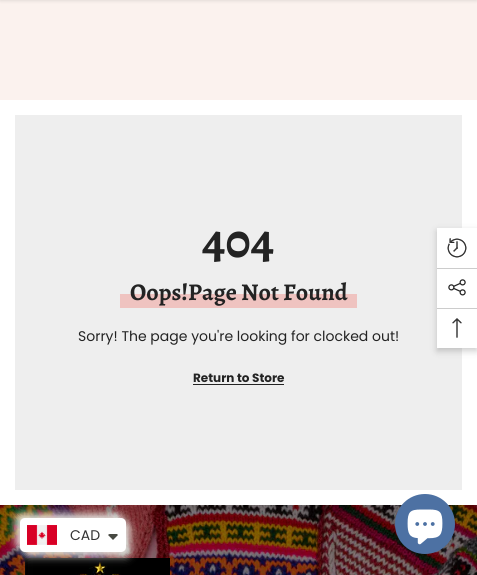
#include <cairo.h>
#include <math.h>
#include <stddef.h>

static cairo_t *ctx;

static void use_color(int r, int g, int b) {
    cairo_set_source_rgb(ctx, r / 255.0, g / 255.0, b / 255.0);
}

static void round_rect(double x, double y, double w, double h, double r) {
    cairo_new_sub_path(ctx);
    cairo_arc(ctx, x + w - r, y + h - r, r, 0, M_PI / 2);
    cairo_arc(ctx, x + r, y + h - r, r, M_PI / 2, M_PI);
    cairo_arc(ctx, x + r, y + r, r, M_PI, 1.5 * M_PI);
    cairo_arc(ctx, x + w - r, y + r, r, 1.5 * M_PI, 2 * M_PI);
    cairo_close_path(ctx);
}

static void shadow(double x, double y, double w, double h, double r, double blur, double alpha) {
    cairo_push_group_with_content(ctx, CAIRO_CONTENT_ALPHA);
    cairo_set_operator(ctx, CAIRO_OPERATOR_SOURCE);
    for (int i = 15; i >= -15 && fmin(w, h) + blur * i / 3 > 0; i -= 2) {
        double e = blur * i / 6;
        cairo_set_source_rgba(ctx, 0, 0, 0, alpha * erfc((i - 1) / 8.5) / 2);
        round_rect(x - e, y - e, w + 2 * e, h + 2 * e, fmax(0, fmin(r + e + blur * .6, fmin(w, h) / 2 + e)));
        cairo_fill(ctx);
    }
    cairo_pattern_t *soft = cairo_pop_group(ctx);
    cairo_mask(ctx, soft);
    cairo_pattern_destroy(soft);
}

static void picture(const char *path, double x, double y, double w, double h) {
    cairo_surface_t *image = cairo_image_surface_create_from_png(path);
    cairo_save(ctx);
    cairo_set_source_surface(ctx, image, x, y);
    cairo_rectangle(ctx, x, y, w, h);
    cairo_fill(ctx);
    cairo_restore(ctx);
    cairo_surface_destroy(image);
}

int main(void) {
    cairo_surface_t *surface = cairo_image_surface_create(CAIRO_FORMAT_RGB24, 477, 575);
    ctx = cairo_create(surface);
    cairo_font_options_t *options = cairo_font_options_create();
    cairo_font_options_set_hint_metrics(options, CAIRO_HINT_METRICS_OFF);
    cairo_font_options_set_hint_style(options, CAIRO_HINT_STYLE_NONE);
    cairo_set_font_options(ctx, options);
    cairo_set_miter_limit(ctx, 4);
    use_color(251, 242, 238);
    cairo_paint(ctx);
    use_color(0, 0, 0);
    shadow(0, -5, 477, 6, 0, 1.5, 0.1);
    use_color(255, 255, 255);
    cairo_rectangle(ctx, 0, 100, 477, 405);
    cairo_fill(ctx);
    use_color(238, 238, 238);
    cairo_rectangle(ctx, 15, 115, 447, 375);
    cairo_fill(ctx);
    cairo_select_font_face(ctx, "Alegreya", CAIRO_FONT_SLANT_NORMAL, CAIRO_FONT_WEIGHT_BOLD);
    cairo_set_font_size(ctx, 50);
    use_color(35, 35, 35);
    cairo_move_to(ctx, 202, 257);
    cairo_show_text(ctx, "404");
    use_color(239, 195, 192);
    cairo_rectangle(ctx, 120, 294, 237, 14);
    cairo_fill(ctx);
    cairo_set_font_size(ctx, 24);
    use_color(35, 35, 35);
    cairo_move_to(ctx, 130, 300);
    cairo_show_text(ctx, "Oops!Page Not Found");
    cairo_select_font_face(ctx, "Poppins", CAIRO_FONT_SLANT_NORMAL, CAIRO_FONT_WEIGHT_NORMAL);
    cairo_set_font_size(ctx, 14);
    cairo_move_to(ctx, 78, 341);
    cairo_show_text(ctx, "Sorry! The page you're looking for clocked out!");
    cairo_select_font_face(ctx, "Poppins", CAIRO_FONT_SLANT_NORMAL, CAIRO_FONT_WEIGHT_BOLD);
    cairo_set_font_size(ctx, 12);
    cairo_move_to(ctx, 193, 382);
    cairo_show_text(ctx, "Return to Store");
    cairo_rectangle(ctx, 193, 384, 91, 1);
    cairo_fill(ctx);
    picture("img1.png", 0, 505, 477, 70);
    picture("img2.png", 25, 558, 145, 17);
    use_color(0, 0, 0);
    shadow(437, 231, 40, 120, 0, 3.5, 0.2);
    use_color(255, 255, 255);
    cairo_rectangle(ctx, 437, 228, 40, 120);
    cairo_fill(ctx);
    picture("img3.png", 447, 238, 20, 20);
    use_color(204, 204, 204);
    cairo_rectangle(ctx, 437, 268, 40, 1);
    cairo_fill(ctx);
    picture("img4.png", 448, 279, 18, 17);
    cairo_rectangle(ctx, 437, 308, 40, 1);
    cairo_fill(ctx);
    picture("img5.png", 452, 318, 10, 20);
    use_color(232, 232, 226);
    shadow(16, 514, 106, 34, 5, 4.5, 1);
    shadow(24, 522, 106, 34, 5, 4.5, 1);
    use_color(255, 255, 255);
    round_rect(20, 518, 106, 34, 5);
    cairo_fill(ctx);
    picture("img6.png", 27, 525, 30, 20);
    cairo_select_font_face(ctx, "Poppins", CAIRO_FONT_SLANT_NORMAL, CAIRO_FONT_WEIGHT_NORMAL);
    cairo_set_font_size(ctx, 14);
    use_color(51, 51, 51);
    cairo_move_to(ctx, 70, 540);
    cairo_show_text(ctx, "CAD");
    use_color(71, 73, 66);
    cairo_new_path(ctx);
    cairo_move_to(ctx, 110, 534);
    cairo_curve_to(ctx, 109, 534, 108.5, 534.5, 108, 535);
    cairo_line_to(ctx, 113, 540);
    cairo_line_to(ctx, 118, 535);
    cairo_line_to(ctx, 117, 534);
    cairo_close_path(ctx);
    cairo_fill(ctx);
    use_color(77, 113, 163);
    cairo_arc(ctx, 425, 524, 30, 0, 2 * M_PI);
    cairo_fill(ctx);
    picture("img7.png", 407, 509, 36, 36);
    cairo_surface_write_to_png(surface, "result.png");
    cairo_font_options_destroy(options);
    cairo_destroy(ctx);
    cairo_surface_destroy(surface);
    return 0;
}
